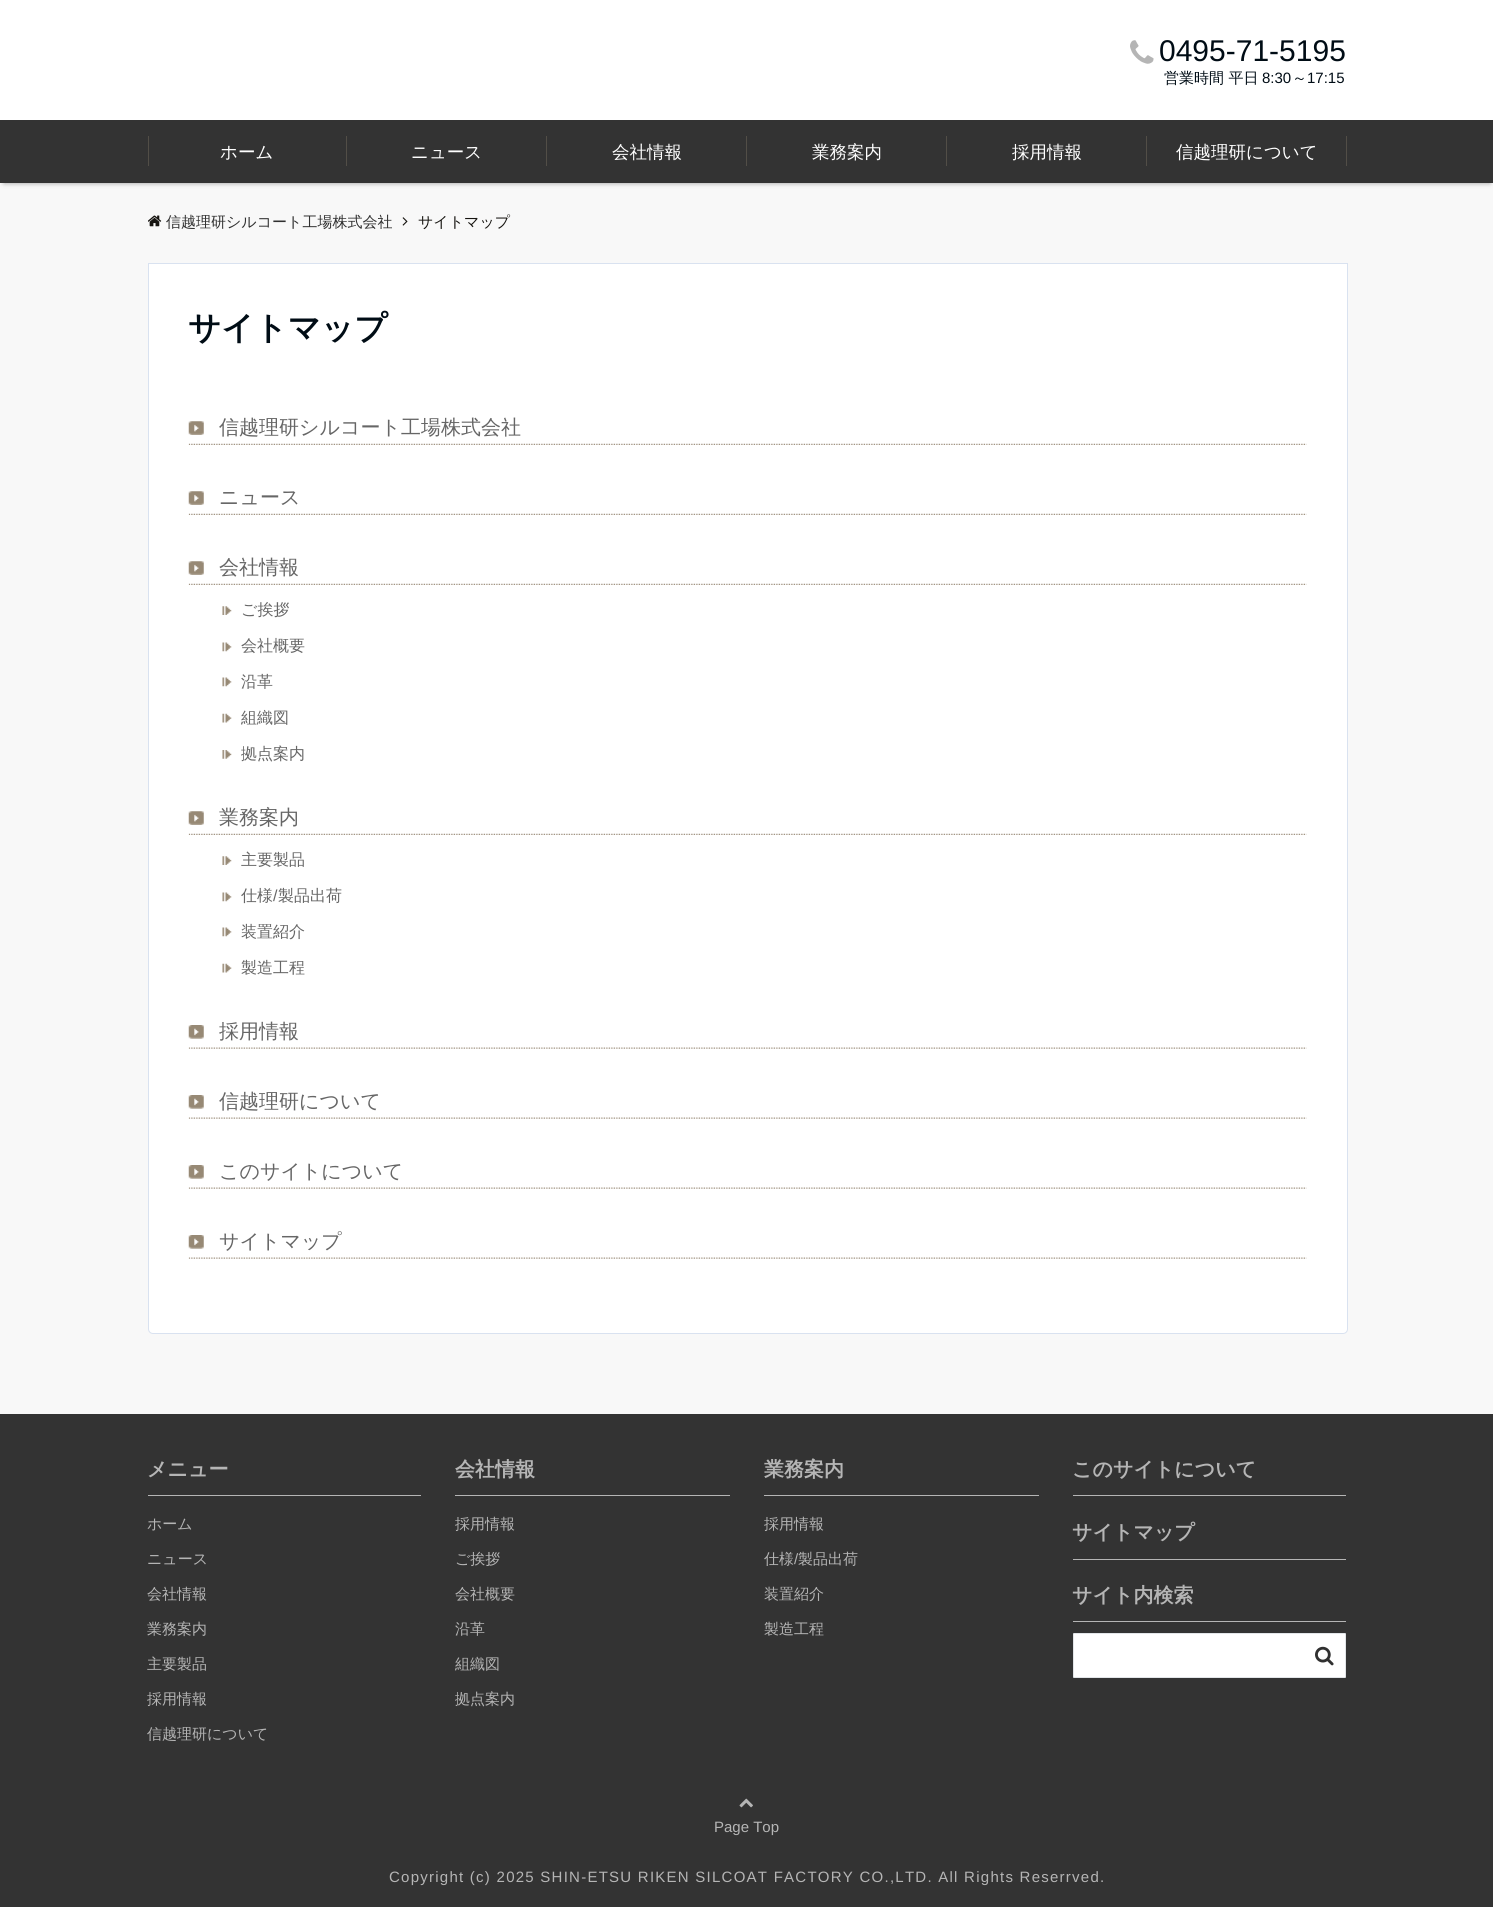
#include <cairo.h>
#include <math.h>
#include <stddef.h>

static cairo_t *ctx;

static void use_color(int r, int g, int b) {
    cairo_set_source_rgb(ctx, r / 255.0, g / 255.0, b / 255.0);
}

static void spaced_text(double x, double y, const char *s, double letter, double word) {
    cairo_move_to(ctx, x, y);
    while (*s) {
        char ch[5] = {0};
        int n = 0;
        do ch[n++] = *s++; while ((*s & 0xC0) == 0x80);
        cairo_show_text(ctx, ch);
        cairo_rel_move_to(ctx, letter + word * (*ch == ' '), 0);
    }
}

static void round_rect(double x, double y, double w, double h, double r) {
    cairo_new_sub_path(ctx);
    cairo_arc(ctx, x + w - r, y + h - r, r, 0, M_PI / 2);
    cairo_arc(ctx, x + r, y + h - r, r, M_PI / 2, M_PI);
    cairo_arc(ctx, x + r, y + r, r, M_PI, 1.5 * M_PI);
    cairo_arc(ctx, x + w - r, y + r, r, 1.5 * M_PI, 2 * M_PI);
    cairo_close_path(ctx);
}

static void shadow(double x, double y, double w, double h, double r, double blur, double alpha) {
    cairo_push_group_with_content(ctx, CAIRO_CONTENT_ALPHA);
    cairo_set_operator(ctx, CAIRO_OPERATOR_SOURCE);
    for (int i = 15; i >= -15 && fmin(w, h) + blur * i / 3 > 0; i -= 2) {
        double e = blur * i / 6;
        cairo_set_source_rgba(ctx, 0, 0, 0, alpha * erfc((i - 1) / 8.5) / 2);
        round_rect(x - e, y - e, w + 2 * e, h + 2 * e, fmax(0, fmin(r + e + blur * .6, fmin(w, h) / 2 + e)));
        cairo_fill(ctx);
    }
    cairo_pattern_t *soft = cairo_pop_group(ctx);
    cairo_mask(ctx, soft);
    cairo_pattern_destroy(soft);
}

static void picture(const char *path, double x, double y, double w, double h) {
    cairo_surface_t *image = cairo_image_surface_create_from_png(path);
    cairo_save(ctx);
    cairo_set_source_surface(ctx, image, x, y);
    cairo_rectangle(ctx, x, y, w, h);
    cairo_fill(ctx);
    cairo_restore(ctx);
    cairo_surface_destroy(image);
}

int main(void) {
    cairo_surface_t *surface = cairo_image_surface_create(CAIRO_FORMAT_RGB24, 1493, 1907);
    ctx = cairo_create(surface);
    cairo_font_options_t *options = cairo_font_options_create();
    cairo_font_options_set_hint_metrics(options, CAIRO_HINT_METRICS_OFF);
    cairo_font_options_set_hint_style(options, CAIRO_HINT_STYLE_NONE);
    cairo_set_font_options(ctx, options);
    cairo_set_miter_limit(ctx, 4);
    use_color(248, 248, 248);
    cairo_paint(ctx);
    use_color(255, 255, 255);
    cairo_rectangle(ctx, 0, 0, 1493, 120);
    cairo_fill(ctx);
    picture("img1.png", 1130, 40, 24, 24);
    cairo_select_font_face(ctx, "Liberation Sans", CAIRO_FONT_SLANT_NORMAL, CAIRO_FONT_WEIGHT_NORMAL);
    cairo_set_font_size(ctx, 30);
    use_color(0, 12, 21);
    cairo_move_to(ctx, 1159, 61);
    cairo_show_text(ctx, "0495-71-5195");
    cairo_select_font_face(ctx, "WenQuanYi Zen Hei Medium", CAIRO_FONT_SLANT_NORMAL, CAIRO_FONT_WEIGHT_NORMAL);
    cairo_set_font_size(ctx, 15);
    cairo_move_to(ctx, 1164, 83);
    cairo_show_text(ctx, "営業時間 平日");
    cairo_select_font_face(ctx, "Liberation Sans", CAIRO_FONT_SLANT_NORMAL, CAIRO_FONT_WEIGHT_NORMAL);
    cairo_move_to(ctx, 1262, 83);
    cairo_show_text(ctx, "8:30");
    cairo_select_font_face(ctx, "WenQuanYi Zen Hei Medium", CAIRO_FONT_SLANT_NORMAL, CAIRO_FONT_WEIGHT_NORMAL);
    cairo_move_to(ctx, 1292, 83);
    cairo_show_text(ctx, "～");
    cairo_select_font_face(ctx, "Liberation Sans", CAIRO_FONT_SLANT_NORMAL, CAIRO_FONT_WEIGHT_NORMAL);
    cairo_move_to(ctx, 1307, 83);
    cairo_show_text(ctx, "17:15");
    use_color(0, 0, 0);
    shadow(4, 128, 1486, 55, 0, 2.5, 0.4);
    use_color(51, 51, 51);
    cairo_rectangle(ctx, 0, 120, 1493, 63);
    cairo_fill(ctx);
    use_color(82, 78, 71);
    cairo_rectangle(ctx, 148, 136, 1, 30);
    cairo_fill(ctx);
    cairo_select_font_face(ctx, "WenQuanYi Zen Hei Medium", CAIRO_FONT_SLANT_NORMAL, CAIRO_FONT_WEIGHT_NORMAL);
    cairo_set_font_size(ctx, 17.5);
    use_color(255, 255, 255);
    cairo_move_to(ctx, 220, 158);
    cairo_show_text(ctx, "ホーム");
    use_color(82, 78, 71);
    cairo_rectangle(ctx, 346, 136, 1, 30);
    cairo_fill(ctx);
    use_color(255, 255, 255);
    cairo_move_to(ctx, 411, 158);
    cairo_show_text(ctx, "ニュース");
    use_color(82, 78, 71);
    cairo_rectangle(ctx, 546, 136, 1, 30);
    cairo_fill(ctx);
    use_color(255, 255, 255);
    cairo_move_to(ctx, 612, 158);
    cairo_show_text(ctx, "会社情報");
    use_color(82, 78, 71);
    cairo_rectangle(ctx, 746, 136, 1, 30);
    cairo_fill(ctx);
    use_color(255, 255, 255);
    cairo_move_to(ctx, 812, 158);
    cairo_show_text(ctx, "業務案内");
    use_color(82, 78, 71);
    cairo_rectangle(ctx, 946, 136, 1, 30);
    cairo_fill(ctx);
    use_color(255, 255, 255);
    cairo_move_to(ctx, 1012, 158);
    cairo_show_text(ctx, "採用情報");
    use_color(82, 78, 71);
    cairo_rectangle(ctx, 1146, 136, 1, 30);
    cairo_fill(ctx);
    use_color(255, 255, 255);
    cairo_move_to(ctx, 1176, 158);
    cairo_show_text(ctx, "信越理研について");
    use_color(82, 78, 71);
    cairo_rectangle(ctx, 1346, 136, 1, 30);
    cairo_fill(ctx);
    picture("img2.png", 148, 215, 14, 12);
    cairo_set_font_size(ctx, 15);
    use_color(48, 48, 48);
    cairo_move_to(ctx, 166, 227);
    cairo_show_text(ctx, "信越理研シルコート工場株式会社");
    picture("img3.png", 402, 217, 6, 9);
    use_color(22, 20, 16);
    cairo_move_to(ctx, 418, 227);
    cairo_show_text(ctx, "サイトマップ");
    use_color(255, 255, 255);
    cairo_new_path(ctx);
    cairo_move_to(ctx, 148.5, 263.5);
    cairo_line_to(ctx, 1347.5, 263.5);
    cairo_line_to(ctx, 1347.5, 1329);
    cairo_curve_to(ctx, 1347.5, 1331.5, 1345.5, 1333.5, 1343, 1333.5);
    cairo_line_to(ctx, 153, 1333.5);
    cairo_curve_to(ctx, 150.5, 1333.5, 148.5, 1331.5, 148.5, 1329);
    cairo_close_path(ctx);
    cairo_fill_preserve(ctx);
    use_color(217, 226, 240);
    cairo_set_line_width(ctx, 1);
    cairo_stroke(ctx);
    cairo_select_font_face(ctx, "WenQuanYi Zen Hei", CAIRO_FONT_SLANT_NORMAL, CAIRO_FONT_WEIGHT_BOLD);
    cairo_set_font_size(ctx, 32.5);
    use_color(0, 12, 21);
    cairo_move_to(ctx, 188, 339);
    cairo_show_text(ctx, "サイトマップ");
    picture("img4.png", 188, 443, 1119, 2);
    picture("img5.png", 188, 421, 16, 14);
    cairo_select_font_face(ctx, "WenQuanYi Zen Hei Medium", CAIRO_FONT_SLANT_NORMAL, CAIRO_FONT_WEIGHT_NORMAL);
    cairo_set_font_size(ctx, 20);
    use_color(102, 102, 102);
    cairo_move_to(ctx, 219, 434);
    cairo_show_text(ctx, "信越理研シルコート工場株式会社");
    picture("img4.png", 188, 513, 1119, 2);
    picture("img5.png", 188, 491, 16, 14);
    cairo_move_to(ctx, 219, 504);
    cairo_show_text(ctx, "ニュース");
    picture("img4.png", 188, 583, 1119, 2);
    picture("img5.png", 188, 561, 16, 14);
    cairo_move_to(ctx, 219, 574);
    cairo_show_text(ctx, "会社情報");
    picture("img6.png", 222, 606, 10, 9);
    cairo_set_font_size(ctx, 16);
    cairo_move_to(ctx, 241, 615);
    cairo_show_text(ctx, "ご挨拶");
    picture("img7.png", 222, 642, 10, 10);
    cairo_move_to(ctx, 241, 651);
    cairo_show_text(ctx, "会社概要");
    picture("img7.png", 222, 677, 10, 10);
    cairo_move_to(ctx, 241, 687);
    cairo_show_text(ctx, "沿革");
    picture("img8.png", 222, 713, 10, 10);
    cairo_move_to(ctx, 241, 723);
    cairo_show_text(ctx, "組織図");
    picture("img9.png", 222, 750, 10, 9);
    cairo_move_to(ctx, 241, 759);
    cairo_show_text(ctx, "拠点案内");
    picture("img4.png", 188, 833, 1119, 2);
    picture("img5.png", 188, 811, 16, 14);
    cairo_set_font_size(ctx, 20);
    cairo_move_to(ctx, 219, 824);
    cairo_show_text(ctx, "業務案内");
    picture("img6.png", 222, 856, 10, 9);
    cairo_set_font_size(ctx, 16);
    cairo_move_to(ctx, 241, 865);
    cairo_show_text(ctx, "主要製品");
    picture("img7.png", 222, 892, 10, 10);
    cairo_move_to(ctx, 241, 901);
    cairo_show_text(ctx, "仕様");
    cairo_select_font_face(ctx, "Liberation Sans", CAIRO_FONT_SLANT_NORMAL, CAIRO_FONT_WEIGHT_NORMAL);
    cairo_move_to(ctx, 273, 901);
    cairo_show_text(ctx, "/");
    cairo_select_font_face(ctx, "WenQuanYi Zen Hei Medium", CAIRO_FONT_SLANT_NORMAL, CAIRO_FONT_WEIGHT_NORMAL);
    cairo_move_to(ctx, 278, 901);
    cairo_show_text(ctx, "製品出荷");
    picture("img7.png", 222, 927, 10, 10);
    cairo_move_to(ctx, 241, 937);
    cairo_show_text(ctx, "装置紹介");
    picture("img8.png", 222, 963, 10, 10);
    cairo_move_to(ctx, 241, 973);
    cairo_show_text(ctx, "製造工程");
    picture("img10.png", 188, 1047, 1119, 2);
    picture("img11.png", 188, 1025, 16, 14);
    cairo_set_font_size(ctx, 20);
    cairo_move_to(ctx, 219, 1038);
    cairo_show_text(ctx, "採用情報");
    picture("img10.png", 188, 1117, 1119, 2);
    picture("img12.png", 188, 1095, 16, 14);
    cairo_move_to(ctx, 219, 1108);
    cairo_show_text(ctx, "信越理研について");
    picture("img10.png", 188, 1187, 1119, 2);
    picture("img13.png", 188, 1165, 16, 14);
    cairo_move_to(ctx, 219, 1178);
    cairo_show_text(ctx, "このサイトについて");
    picture("img10.png", 188, 1257, 1119, 2);
    picture("img12.png", 188, 1235, 16, 14);
    cairo_move_to(ctx, 219, 1248);
    cairo_show_text(ctx, "サイトマップ");
    use_color(51, 51, 51);
    cairo_rectangle(ctx, 0, 1414, 1493, 493);
    cairo_fill(ctx);
    use_color(181, 181, 181);
    cairo_rectangle(ctx, 148, 1495, 273, 1);
    cairo_fill(ctx);
    cairo_select_font_face(ctx, "WenQuanYi Zen Hei", CAIRO_FONT_SLANT_NORMAL, CAIRO_FONT_WEIGHT_BOLD);
    cairo_move_to(ctx, 147, 1476);
    cairo_show_text(ctx, "メニュー");
    cairo_select_font_face(ctx, "WenQuanYi Zen Hei Medium", CAIRO_FONT_SLANT_NORMAL, CAIRO_FONT_WEIGHT_NORMAL);
    cairo_set_font_size(ctx, 15);
    cairo_move_to(ctx, 147, 1529);
    cairo_show_text(ctx, "ホーム");
    cairo_move_to(ctx, 147, 1564);
    cairo_show_text(ctx, "ニュース");
    cairo_move_to(ctx, 147, 1599);
    cairo_show_text(ctx, "会社情報");
    cairo_move_to(ctx, 147, 1634);
    cairo_show_text(ctx, "業務案内");
    cairo_move_to(ctx, 147, 1669);
    cairo_show_text(ctx, "主要製品");
    cairo_move_to(ctx, 147, 1704);
    cairo_show_text(ctx, "採用情報");
    cairo_move_to(ctx, 147, 1739);
    cairo_show_text(ctx, "信越理研について");
    cairo_rectangle(ctx, 455, 1495, 275, 1);
    cairo_fill(ctx);
    cairo_select_font_face(ctx, "WenQuanYi Zen Hei", CAIRO_FONT_SLANT_NORMAL, CAIRO_FONT_WEIGHT_BOLD);
    cairo_set_font_size(ctx, 20);
    cairo_move_to(ctx, 455, 1476);
    cairo_show_text(ctx, "会社情報");
    cairo_select_font_face(ctx, "WenQuanYi Zen Hei Medium", CAIRO_FONT_SLANT_NORMAL, CAIRO_FONT_WEIGHT_NORMAL);
    cairo_set_font_size(ctx, 15);
    cairo_move_to(ctx, 455, 1529);
    cairo_show_text(ctx, "採用情報");
    cairo_move_to(ctx, 455, 1564);
    cairo_show_text(ctx, "ご挨拶");
    cairo_move_to(ctx, 455, 1599);
    cairo_show_text(ctx, "会社概要");
    cairo_move_to(ctx, 455, 1634);
    cairo_show_text(ctx, "沿革");
    cairo_move_to(ctx, 455, 1669);
    cairo_show_text(ctx, "組織図");
    cairo_move_to(ctx, 455, 1704);
    cairo_show_text(ctx, "拠点案内");
    cairo_rectangle(ctx, 764, 1495, 275, 1);
    cairo_fill(ctx);
    cairo_select_font_face(ctx, "WenQuanYi Zen Hei", CAIRO_FONT_SLANT_NORMAL, CAIRO_FONT_WEIGHT_BOLD);
    cairo_set_font_size(ctx, 20);
    cairo_move_to(ctx, 764, 1476);
    cairo_show_text(ctx, "業務案内");
    cairo_select_font_face(ctx, "WenQuanYi Zen Hei Medium", CAIRO_FONT_SLANT_NORMAL, CAIRO_FONT_WEIGHT_NORMAL);
    cairo_set_font_size(ctx, 15);
    cairo_move_to(ctx, 764, 1529);
    cairo_show_text(ctx, "採用情報");
    cairo_move_to(ctx, 764, 1564);
    cairo_show_text(ctx, "仕様");
    cairo_select_font_face(ctx, "Liberation Sans", CAIRO_FONT_SLANT_NORMAL, CAIRO_FONT_WEIGHT_NORMAL);
    cairo_move_to(ctx, 794, 1564);
    cairo_show_text(ctx, "/");
    cairo_select_font_face(ctx, "WenQuanYi Zen Hei Medium", CAIRO_FONT_SLANT_NORMAL, CAIRO_FONT_WEIGHT_NORMAL);
    cairo_move_to(ctx, 798, 1564);
    cairo_show_text(ctx, "製品出荷");
    cairo_move_to(ctx, 764, 1599);
    cairo_show_text(ctx, "装置紹介");
    cairo_move_to(ctx, 764, 1634);
    cairo_show_text(ctx, "製造工程");
    cairo_rectangle(ctx, 1073, 1495, 273, 1);
    cairo_fill(ctx);
    cairo_select_font_face(ctx, "WenQuanYi Zen Hei", CAIRO_FONT_SLANT_NORMAL, CAIRO_FONT_WEIGHT_BOLD);
    cairo_set_font_size(ctx, 20);
    cairo_move_to(ctx, 1072, 1476);
    cairo_show_text(ctx, "このサイトについて");
    cairo_rectangle(ctx, 1073, 1559, 273, 1);
    cairo_fill(ctx);
    cairo_move_to(ctx, 1072, 1539);
    cairo_show_text(ctx, "サイトマップ");
    cairo_rectangle(ctx, 1073, 1621, 273, 1);
    cairo_fill(ctx);
    cairo_move_to(ctx, 1072, 1602);
    cairo_show_text(ctx, "サイト内検索");
    use_color(255, 255, 255);
    round_rect(1073.5, 1633.5, 272, 44, 0.5);
    cairo_fill_preserve(ctx);
    use_color(226, 229, 232);
    cairo_stroke(ctx);
    picture("img14.png", 1315, 1646, 19, 20);
    picture("img15.png", 739, 1798, 14, 10);
    cairo_select_font_face(ctx, "Liberation Sans", CAIRO_FONT_SLANT_NORMAL, CAIRO_FONT_WEIGHT_NORMAL);
    cairo_set_font_size(ctx, 15);
    use_color(181, 181, 181);
    cairo_move_to(ctx, 714, 1832);
    cairo_show_text(ctx, "Page Top");
    spaced_text(389, 1882, "Copyright (c) 2025 SHIN-ETSU RIKEN SILCOAT FACTORY CO.,LTD. All Rights Reserrved.", 1.25, 0);
    cairo_surface_write_to_png(surface, "result.png");
    cairo_font_options_destroy(options);
    cairo_destroy(ctx);
    cairo_surface_destroy(surface);
    return 0;
}
